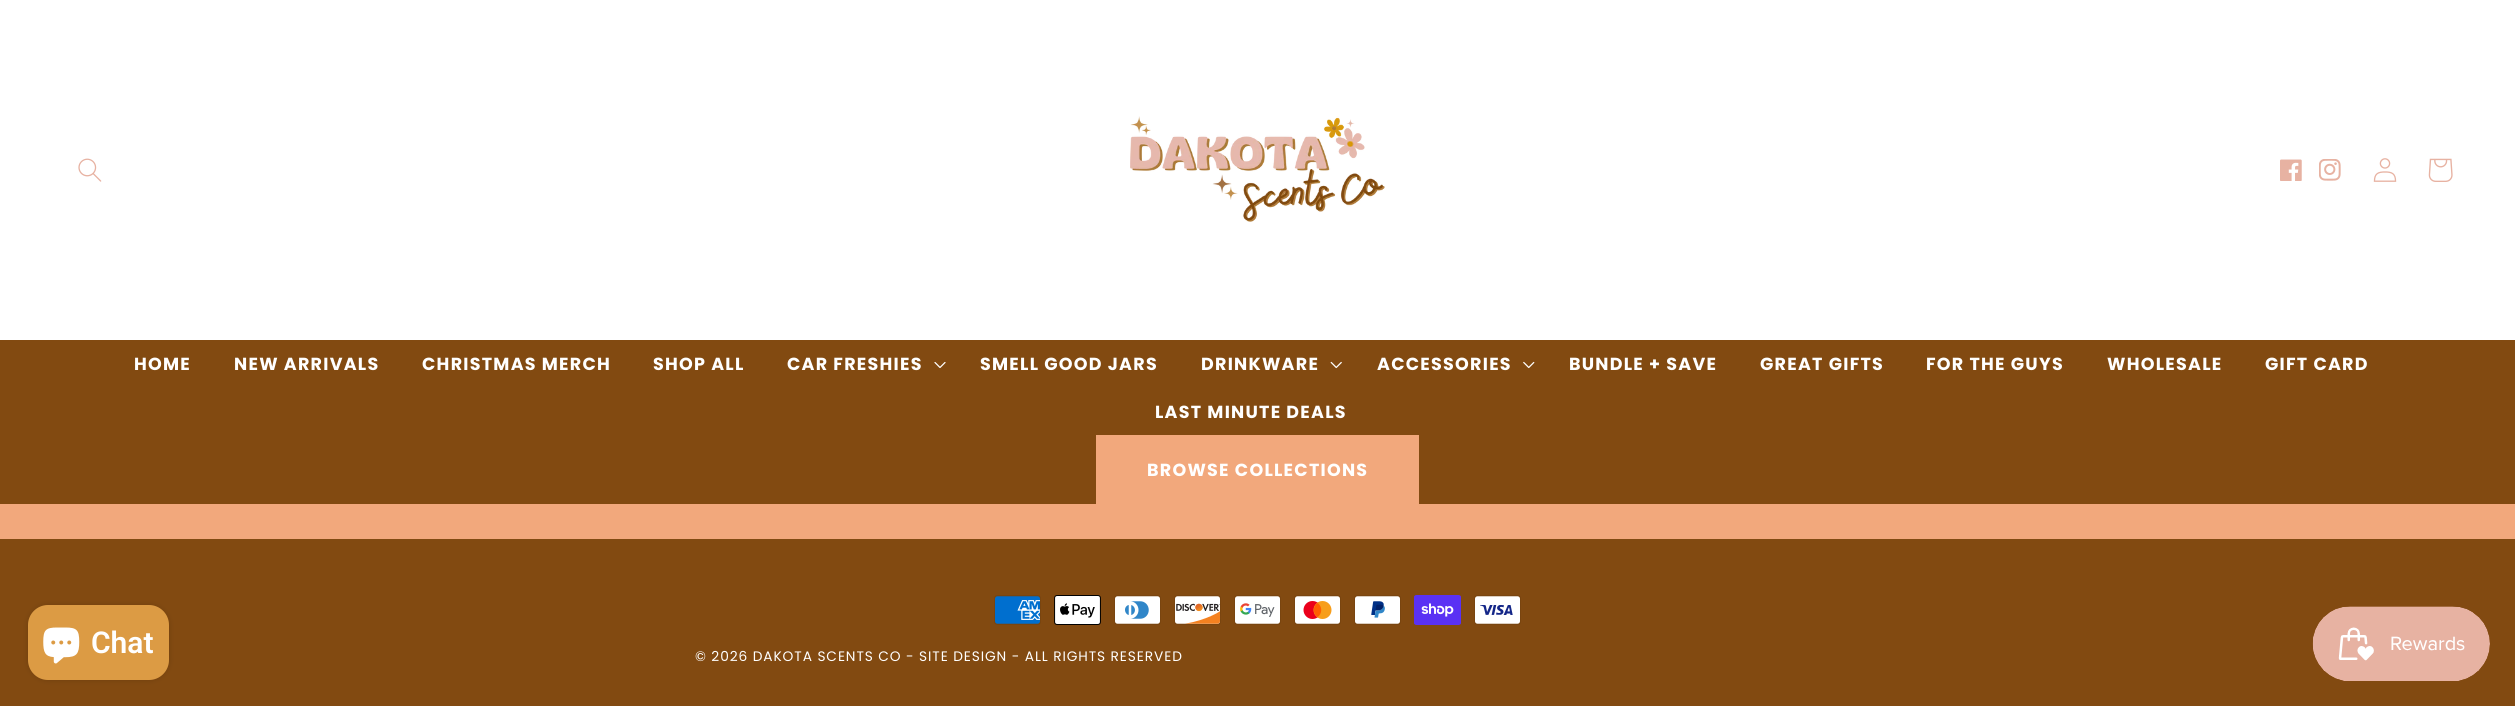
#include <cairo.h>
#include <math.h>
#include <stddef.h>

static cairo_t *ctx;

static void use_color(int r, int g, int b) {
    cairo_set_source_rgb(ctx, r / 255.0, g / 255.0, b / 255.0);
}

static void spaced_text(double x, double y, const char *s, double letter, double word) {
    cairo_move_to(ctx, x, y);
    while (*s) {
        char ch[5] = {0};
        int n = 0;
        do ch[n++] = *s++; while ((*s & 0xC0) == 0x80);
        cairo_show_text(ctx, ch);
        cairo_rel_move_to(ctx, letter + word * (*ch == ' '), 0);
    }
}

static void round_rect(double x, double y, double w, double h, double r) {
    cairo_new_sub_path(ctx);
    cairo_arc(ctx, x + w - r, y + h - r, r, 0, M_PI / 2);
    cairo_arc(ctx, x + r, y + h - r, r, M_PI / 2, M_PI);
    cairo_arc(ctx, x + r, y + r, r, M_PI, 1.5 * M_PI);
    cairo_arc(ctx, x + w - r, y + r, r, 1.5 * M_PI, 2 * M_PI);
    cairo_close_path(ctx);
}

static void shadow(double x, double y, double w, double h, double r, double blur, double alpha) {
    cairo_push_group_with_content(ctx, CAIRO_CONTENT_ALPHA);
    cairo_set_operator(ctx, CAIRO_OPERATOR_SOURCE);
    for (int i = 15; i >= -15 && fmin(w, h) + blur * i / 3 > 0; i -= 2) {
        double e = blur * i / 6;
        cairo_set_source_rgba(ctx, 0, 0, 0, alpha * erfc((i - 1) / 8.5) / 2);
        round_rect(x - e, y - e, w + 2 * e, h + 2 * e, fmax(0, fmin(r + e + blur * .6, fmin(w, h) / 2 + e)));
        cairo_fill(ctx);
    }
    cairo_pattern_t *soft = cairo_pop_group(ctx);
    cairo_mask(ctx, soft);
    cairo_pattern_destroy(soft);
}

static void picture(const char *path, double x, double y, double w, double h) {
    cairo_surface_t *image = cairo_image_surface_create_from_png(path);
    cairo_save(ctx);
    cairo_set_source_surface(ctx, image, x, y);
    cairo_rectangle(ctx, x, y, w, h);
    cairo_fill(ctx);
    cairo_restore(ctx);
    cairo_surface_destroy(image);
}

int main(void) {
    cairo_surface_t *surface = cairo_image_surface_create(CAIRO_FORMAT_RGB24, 2515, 706);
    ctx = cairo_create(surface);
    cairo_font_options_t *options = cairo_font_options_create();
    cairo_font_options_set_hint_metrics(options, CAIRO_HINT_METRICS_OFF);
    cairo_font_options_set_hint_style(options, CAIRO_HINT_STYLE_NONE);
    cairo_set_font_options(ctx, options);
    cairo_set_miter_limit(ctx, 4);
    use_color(242, 168, 124);
    cairo_paint(ctx);
    use_color(255, 255, 255);
    cairo_rectangle(ctx, 0, 0, 2515, 340);
    cairo_fill(ctx);
    picture("img1.png", 78, 158, 24, 24);
    picture("img2.png", 1130, 116, 255, 106);
    picture("img3.png", 2280, 159, 22, 22);
    picture("img4.png", 2319, 159, 22, 22);
    picture("img5.png", 2373, 158, 24, 24);
    picture("img6.png", 2428, 158, 25, 24);
    use_color(130, 74, 17);
    cairo_rectangle(ctx, 0, 340, 2515, 164);
    cairo_fill(ctx);
    cairo_select_font_face(ctx, "Poppins", CAIRO_FONT_SLANT_NORMAL, CAIRO_FONT_WEIGHT_BOLD);
    cairo_set_font_size(ctx, 17.5);
    use_color(255, 255, 255);
    spaced_text(134, 370, "HOME", 1.25, 0);
    spaced_text(234, 370, "NEW ARRIVALS", 1.25, 0);
    spaced_text(422, 370, "CHRISTMAS MERCH", 1.25, 0);
    spaced_text(653, 370, "SHOP ALL", 1.25, 0);
    spaced_text(787, 370, "CAR FRESHIES", 1.25, 0);
    picture("img7.png", 934, 362, 12, 6);
    spaced_text(980, 370, "SMELL GOOD JARS", 1.25, 0);
    spaced_text(1201, 370, "DRINKWARE", 1.25, 0);
    picture("img8.png", 1330, 361, 12, 8);
    spaced_text(1377, 370, "ACCESSORIES", 1.25, 0);
    picture("img9.png", 1523, 361, 12, 8);
    spaced_text(1569, 370, "BUNDLE + SAVE", 1.25, 0);
    spaced_text(1760, 370, "GREAT GIFTS", 1.25, 0);
    spaced_text(1926, 370, "FOR THE GUYS", 1.25, 0);
    spaced_text(2107, 370, "WHOLESALE", 1.25, 0);
    spaced_text(2265, 370, "GIFT CARD", 1.25, 0);
    spaced_text(1155, 418, "LAST MINUTE DEALS", 1.25, 0);
    use_color(242, 168, 124);
    cairo_rectangle(ctx, 1096, 435, 323, 69);
    cairo_fill(ctx);
    use_color(255, 255, 255);
    spaced_text(1147, 476, "BROWSE COLLECTIONS", 1.25, 0);
    use_color(130, 74, 17);
    cairo_rectangle(ctx, 0, 539, 2515, 167);
    cairo_fill(ctx);
    use_color(0, 0, 0);
    shadow(28, 605, 141, 75, 20, 3, 0.15);
    use_color(220, 155, 68);
    round_rect(28, 605, 141, 75, 20);
    cairo_fill(ctx);
    picture("img10.png", 43, 627, 37, 37);
    cairo_select_font_face(ctx, "Roboto SemiBold", CAIRO_FONT_SLANT_NORMAL, CAIRO_FONT_WEIGHT_NORMAL);
    cairo_set_font_size(ctx, 30);
    use_color(255, 255, 255);
    cairo_move_to(ctx, 91, 653);
    cairo_show_text(ctx, "Chat");
    picture("img11.png", 2312, 606, 178, 75);
    picture("img12.png", 994, 595, 47, 30);
    picture("img13.png", 1054, 595, 47, 30);
    picture("img14.png", 1114, 595, 47, 30);
    picture("img15.png", 1174, 595, 47, 30);
    picture("img16.png", 1234, 595, 47, 30);
    picture("img17.png", 1294, 595, 47, 30);
    picture("img18.png", 1354, 595, 47, 30);
    picture("img19.png", 1414, 595, 47, 30);
    picture("img20.png", 1474, 595, 47, 30);
    cairo_select_font_face(ctx, "Poppins", CAIRO_FONT_SLANT_NORMAL, CAIRO_FONT_WEIGHT_NORMAL);
    cairo_set_font_size(ctx, 13.75);
    spaced_text(695, 661, "© 2026 DAKOTA SCENTS CO", 0.9, 0);
    spaced_text(906, 661, "- SITE DESIGN - ALL RIGHTS RESERVED", 0.9, 0);
    cairo_surface_write_to_png(surface, "result.png");
    cairo_font_options_destroy(options);
    cairo_destroy(ctx);
    cairo_surface_destroy(surface);
    return 0;
}
